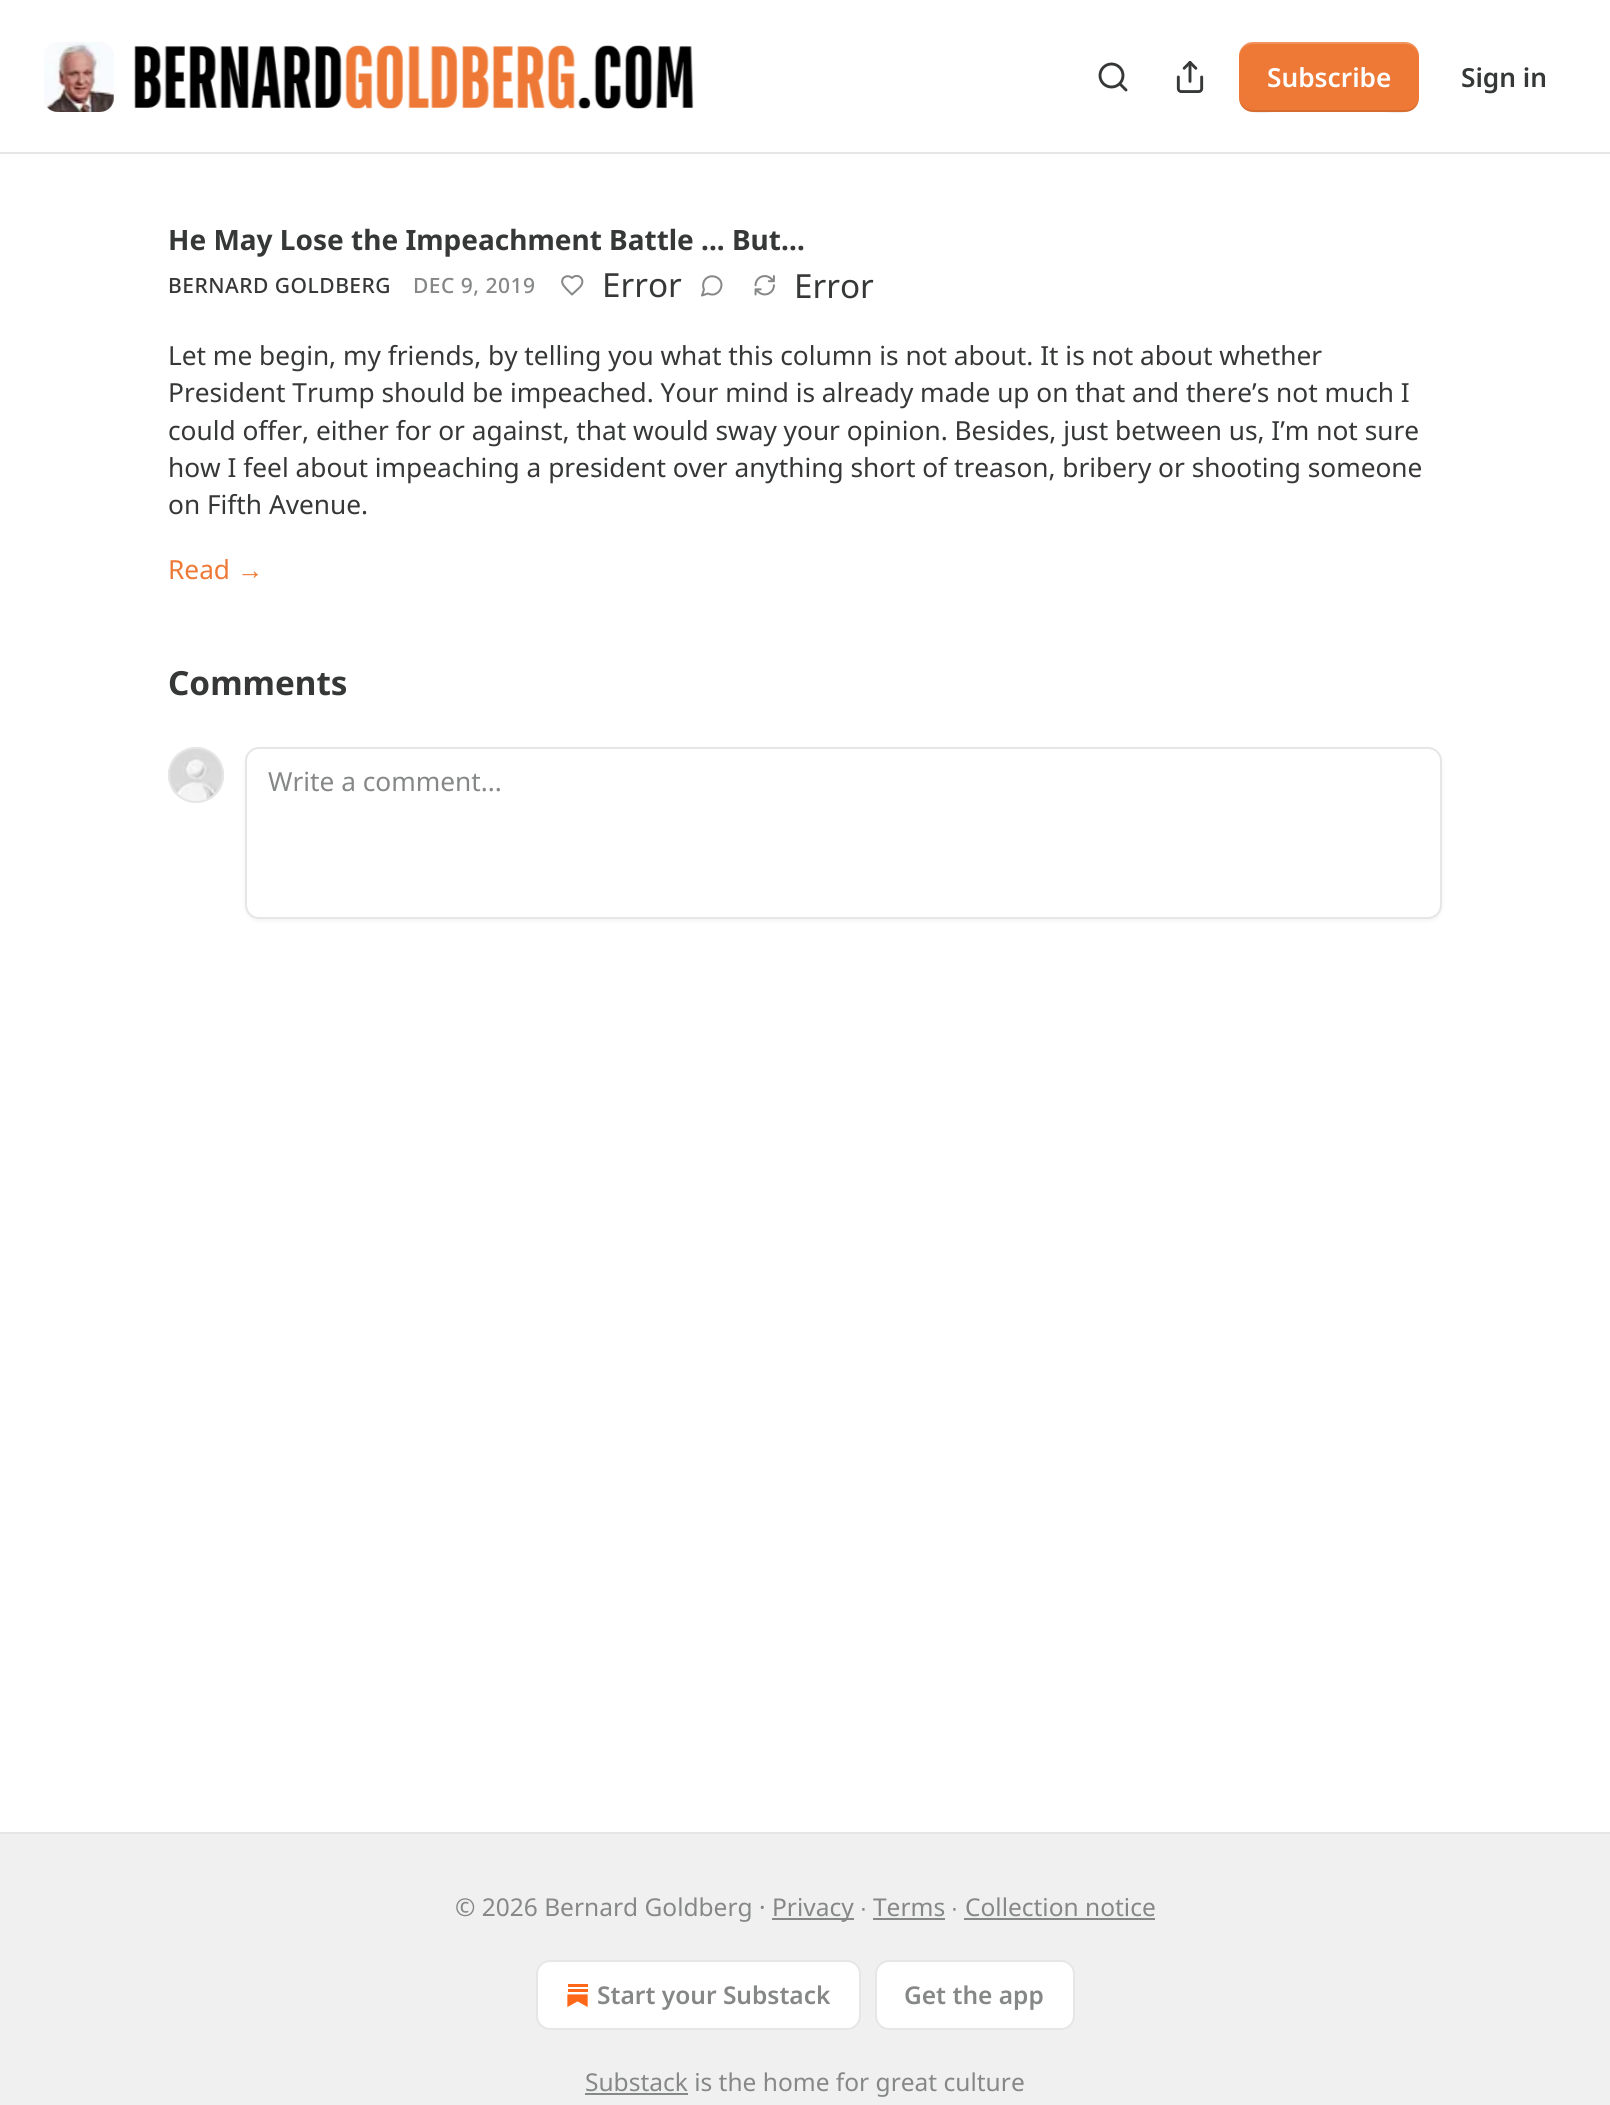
#include <cairo.h>
#include <math.h>
#include <stddef.h>

static cairo_t *ctx;

static void use_color(int r, int g, int b) {
    cairo_set_source_rgb(ctx, r / 255.0, g / 255.0, b / 255.0);
}

static void spaced_text(double x, double y, const char *s, double letter, double word) {
    cairo_move_to(ctx, x, y);
    while (*s) {
        char ch[5] = {0};
        int n = 0;
        do ch[n++] = *s++; while ((*s & 0xC0) == 0x80);
        cairo_show_text(ctx, ch);
        cairo_rel_move_to(ctx, letter + word * (*ch == ' '), 0);
    }
}

static void round_rect(double x, double y, double w, double h, double r) {
    cairo_new_sub_path(ctx);
    cairo_arc(ctx, x + w - r, y + h - r, r, 0, M_PI / 2);
    cairo_arc(ctx, x + r, y + h - r, r, M_PI / 2, M_PI);
    cairo_arc(ctx, x + r, y + r, r, M_PI, 1.5 * M_PI);
    cairo_arc(ctx, x + w - r, y + r, r, 1.5 * M_PI, 2 * M_PI);
    cairo_close_path(ctx);
}

static void shadow(double x, double y, double w, double h, double r, double blur, double alpha) {
    cairo_push_group_with_content(ctx, CAIRO_CONTENT_ALPHA);
    cairo_set_operator(ctx, CAIRO_OPERATOR_SOURCE);
    for (int i = 15; i >= -15 && fmin(w, h) + blur * i / 3 > 0; i -= 2) {
        double e = blur * i / 6;
        cairo_set_source_rgba(ctx, 0, 0, 0, alpha * erfc((i - 1) / 8.5) / 2);
        round_rect(x - e, y - e, w + 2 * e, h + 2 * e, fmax(0, fmin(r + e + blur * .6, fmin(w, h) / 2 + e)));
        cairo_fill(ctx);
    }
    cairo_pattern_t *soft = cairo_pop_group(ctx);
    cairo_mask(ctx, soft);
    cairo_pattern_destroy(soft);
}

static void picture(const char *path, double x, double y, double w, double h) {
    cairo_surface_t *image = cairo_image_surface_create_from_png(path);
    cairo_save(ctx);
    cairo_set_source_surface(ctx, image, x, y);
    cairo_rectangle(ctx, x, y, w, h);
    cairo_fill(ctx);
    cairo_restore(ctx);
    cairo_surface_destroy(image);
}

int main(void) {
    cairo_surface_t *surface = cairo_image_surface_create(CAIRO_FORMAT_RGB24, 1610, 2105);
    ctx = cairo_create(surface);
    cairo_font_options_t *options = cairo_font_options_create();
    cairo_font_options_set_hint_metrics(options, CAIRO_HINT_METRICS_OFF);
    cairo_font_options_set_hint_style(options, CAIRO_HINT_STYLE_NONE);
    cairo_set_font_options(ctx, options);
    cairo_set_miter_limit(ctx, 4);
    use_color(255, 255, 255);
    cairo_paint(ctx);
    use_color(230, 230, 230);
    cairo_rectangle(ctx, 0, 152, 1610, 2);
    cairo_fill(ctx);
    picture("img1.png", 44, 42, 70, 70);
    picture("img2.png", 134, 45, 560, 64);
    cairo_arc(ctx, 1111.5, 75.5, 11.5, 0, 2 * M_PI);
    use_color(54, 55, 55);
    cairo_set_line_width(ctx, 2.9);
    cairo_stroke(ctx);
    cairo_new_path(ctx);
    cairo_move_to(ctx, 1126, 90);
    cairo_line_to(ctx, 1120, 84);
    cairo_set_line_cap(ctx, CAIRO_LINE_CAP_ROUND);
    cairo_set_line_join(ctx, CAIRO_LINE_JOIN_ROUND);
    cairo_stroke(ctx);
    picture("img3.png", 1176, 61, 28, 32);
    use_color(238, 120, 53);
    round_rect(1239, 42, 180, 70, 14);
    cairo_fill(ctx);
    cairo_set_source_rgba(ctx, 0, 0, 0, 0.1);
    cairo_new_path(ctx);
    cairo_move_to(ctx, 1239, 96);
    cairo_curve_to(ctx, 1239, 118, 1263, 112, 1278, 112);
    cairo_line_to(ctx, 1380, 112);
    cairo_curve_to(ctx, 1395, 112, 1419, 118, 1419, 96);
    cairo_curve_to(ctx, 1419, 104, 1413, 110, 1405, 110);
    cairo_line_to(ctx, 1253, 110);
    cairo_curve_to(ctx, 1245, 110, 1239, 104, 1239, 96);
    cairo_close_path(ctx);
    cairo_fill(ctx);
    cairo_set_source_rgba(ctx, 1, 1, 1, 0.2);
    cairo_new_path(ctx);
    cairo_move_to(ctx, 1253, 44);
    cairo_line_to(ctx, 1405, 44);
    cairo_curve_to(ctx, 1413, 44, 1419, 50, 1419, 58);
    cairo_curve_to(ctx, 1419, 36, 1395, 42, 1380, 42);
    cairo_line_to(ctx, 1278, 42);
    cairo_curve_to(ctx, 1263, 42, 1239, 36, 1239, 58);
    cairo_curve_to(ctx, 1239, 50, 1245, 44, 1253, 44);
    cairo_close_path(ctx);
    cairo_fill(ctx);
    cairo_select_font_face(ctx, "Noto Sans SemiBold", CAIRO_FONT_SLANT_NORMAL, CAIRO_FONT_WEIGHT_NORMAL);
    cairo_set_font_size(ctx, 26.25);
    use_color(255, 255, 255);
    cairo_move_to(ctx, 1267, 87);
    cairo_show_text(ctx, "Subscribe");
    use_color(54, 55, 55);
    cairo_move_to(ctx, 1461, 87);
    cairo_show_text(ctx, "Sign in");
    cairo_select_font_face(ctx, "Noto Sans", CAIRO_FONT_SLANT_NORMAL, CAIRO_FONT_WEIGHT_BOLD);
    cairo_set_font_size(ctx, 28);
    cairo_move_to(ctx, 168, 250);
    cairo_show_text(ctx, "He May Lose the Impeachment Battle ... But…");
    cairo_select_font_face(ctx, "Noto Sans Medium", CAIRO_FONT_SLANT_NORMAL, CAIRO_FONT_WEIGHT_NORMAL);
    cairo_set_font_size(ctx, 21);
    spaced_text(168, 293, "BERNARD GOLDBERG", 0.5, 0);
    use_color(134, 135, 135);
    spaced_text(413, 293, "DEC 9, 2019", 0.5, 0);
    cairo_new_path(ctx);
    cairo_move_to(ctx, 579.5, 287.5);
    cairo_curve_to(ctx, 587, 280, 578, 272, 572, 278);
    cairo_curve_to(ctx, 568, 274, 560.5, 277, 562.5, 283.5);
    cairo_curve_to(ctx, 563.5, 286.5, 569.5, 292, 572, 294.5);
    cairo_close_path(ctx);
    cairo_set_line_width(ctx, 2);
    cairo_stroke(ctx);
    cairo_select_font_face(ctx, "Noto Sans", CAIRO_FONT_SLANT_NORMAL, CAIRO_FONT_WEIGHT_NORMAL);
    cairo_set_font_size(ctx, 33.25);
    use_color(54, 55, 55);
    cairo_move_to(ctx, 602, 297);
    cairo_show_text(ctx, "Error");
    cairo_new_path(ctx);
    cairo_move_to(ctx, 708, 293.5);
    cairo_curve_to(ctx, 719, 299, 727.5, 282, 716, 277);
    cairo_curve_to(ctx, 713.5, 276, 710.5, 276, 708.5, 277);
    cairo_curve_to(ctx, 703.5, 279, 702, 285, 704, 289.5);
    cairo_line_to(ctx, 702, 295.5);
    cairo_close_path(ctx);
    use_color(134, 135, 135);
    cairo_stroke(ctx);
    picture("img4.png", 754, 275, 21, 21);
    use_color(54, 55, 55);
    cairo_move_to(ctx, 794, 298);
    cairo_show_text(ctx, "Error");
    cairo_set_font_size(ctx, 26.25);
    cairo_move_to(ctx, 168, 365);
    cairo_show_text(ctx, "Let me begin, my friends, by telling you what this column is not about. It is not about whether");
    cairo_move_to(ctx, 168, 402);
    cairo_show_text(ctx, "President Trump should be impeached. Your mind is already made up on that and there’s not much I");
    cairo_move_to(ctx, 168, 440);
    cairo_show_text(ctx, "could offer, either for or against, that would sway your opinion. Besides, just between us, I’m not sure");
    cairo_move_to(ctx, 168, 477);
    cairo_show_text(ctx, "how I feel about impeaching a president over anything short of treason, bribery or shooting someone");
    cairo_move_to(ctx, 168, 514);
    cairo_show_text(ctx, "on Fifth Avenue.");
    use_color(238, 120, 53);
    cairo_move_to(ctx, 168, 579);
    cairo_show_text(ctx, "Read");
    cairo_select_font_face(ctx, "Liberation Sans", CAIRO_FONT_SLANT_NORMAL, CAIRO_FONT_WEIGHT_NORMAL);
    cairo_move_to(ctx, 237, 579);
    cairo_show_text(ctx, "→");
    cairo_select_font_face(ctx, "Noto Sans", CAIRO_FONT_SLANT_NORMAL, CAIRO_FONT_WEIGHT_BOLD);
    cairo_set_font_size(ctx, 33.25);
    use_color(54, 55, 55);
    cairo_move_to(ctx, 168, 695);
    cairo_show_text(ctx, "Comments");
    cairo_new_path(ctx);
    cairo_arc(ctx, 196, 775, 27, 0, 2 * M_PI);
    use_color(230, 230, 230);
    cairo_set_line_cap(ctx, CAIRO_LINE_CAP_BUTT);
    cairo_set_line_join(ctx, CAIRO_LINE_JOIN_MITER);
    cairo_stroke(ctx);
    picture("img5.png", 168, 747, 56, 56);
    cairo_arc(ctx, 196, 775, 27, 0, 2 * M_PI);
    cairo_stroke(ctx);
    use_color(0, 0, 0);
    shadow(245, 749, 1197, 172, 14, 2, 0.05);
    use_color(255, 255, 255);
    round_rect(246, 748, 1195, 170, 13);
    cairo_fill_preserve(ctx);
    use_color(230, 230, 230);
    cairo_stroke(ctx);
    cairo_select_font_face(ctx, "Noto Sans", CAIRO_FONT_SLANT_NORMAL, CAIRO_FONT_WEIGHT_NORMAL);
    cairo_set_font_size(ctx, 26.25);
    use_color(134, 135, 135);
    cairo_move_to(ctx, 268, 791);
    cairo_show_text(ctx, "Write a comment...");
    use_color(240, 240, 240);
    cairo_rectangle(ctx, 0, 1834, 1610, 271);
    cairo_fill(ctx);
    use_color(230, 230, 230);
    cairo_rectangle(ctx, 0, 1832, 1610, 2);
    cairo_fill(ctx);
    cairo_set_font_size(ctx, 24.5);
    use_color(134, 135, 135);
    cairo_move_to(ctx, 455, 1916);
    cairo_show_text(ctx, "© 2026 Bernard Goldberg ·");
    cairo_rectangle(ctx, 772, 1918, 82, 2);
    cairo_fill(ctx);
    cairo_move_to(ctx, 772, 1916);
    cairo_show_text(ctx, "Privacy");
    cairo_select_font_face(ctx, "Liberation Sans", CAIRO_FONT_SLANT_NORMAL, CAIRO_FONT_WEIGHT_NORMAL);
    cairo_move_to(ctx, 860, 1916);
    cairo_show_text(ctx, "∙");
    cairo_select_font_face(ctx, "Noto Sans", CAIRO_FONT_SLANT_NORMAL, CAIRO_FONT_WEIGHT_NORMAL);
    cairo_move_to(ctx, 873, 1916);
    cairo_show_text(ctx, "Terms");
    cairo_rectangle(ctx, 873, 1918, 72, 2);
    cairo_fill(ctx);
    cairo_select_font_face(ctx, "Liberation Sans", CAIRO_FONT_SLANT_NORMAL, CAIRO_FONT_WEIGHT_NORMAL);
    cairo_move_to(ctx, 951, 1916);
    cairo_show_text(ctx, "∙");
    cairo_select_font_face(ctx, "Noto Sans", CAIRO_FONT_SLANT_NORMAL, CAIRO_FONT_WEIGHT_NORMAL);
    cairo_move_to(ctx, 965, 1916);
    cairo_show_text(ctx, "Collection notice");
    cairo_rectangle(ctx, 964, 1918, 191, 2);
    cairo_fill(ctx);
    use_color(255, 255, 255);
    round_rect(537, 1961, 323, 68, 13);
    cairo_fill_preserve(ctx);
    use_color(230, 230, 230);
    cairo_stroke(ctx);
    picture("img6.png", 567, 1984, 21, 23);
    cairo_select_font_face(ctx, "Noto Sans SemiBold", CAIRO_FONT_SLANT_NORMAL, CAIRO_FONT_WEIGHT_NORMAL);
    use_color(134, 135, 135);
    cairo_move_to(ctx, 597, 2004);
    cairo_show_text(ctx, "Start your Substack");
    use_color(255, 255, 255);
    round_rect(876, 1961, 198, 68, 13);
    cairo_fill_preserve(ctx);
    use_color(230, 230, 230);
    cairo_stroke(ctx);
    use_color(134, 135, 135);
    cairo_move_to(ctx, 904, 2004);
    cairo_show_text(ctx, "Get the app");
    cairo_rectangle(ctx, 585, 2093, 103, 2);
    cairo_fill(ctx);
    cairo_select_font_face(ctx, "Noto Sans", CAIRO_FONT_SLANT_NORMAL, CAIRO_FONT_WEIGHT_NORMAL);
    cairo_move_to(ctx, 585, 2091);
    cairo_show_text(ctx, "Substack is the home for great culture");
    cairo_surface_write_to_png(surface, "result.png");
    cairo_font_options_destroy(options);
    cairo_destroy(ctx);
    cairo_surface_destroy(surface);
    return 0;
}
